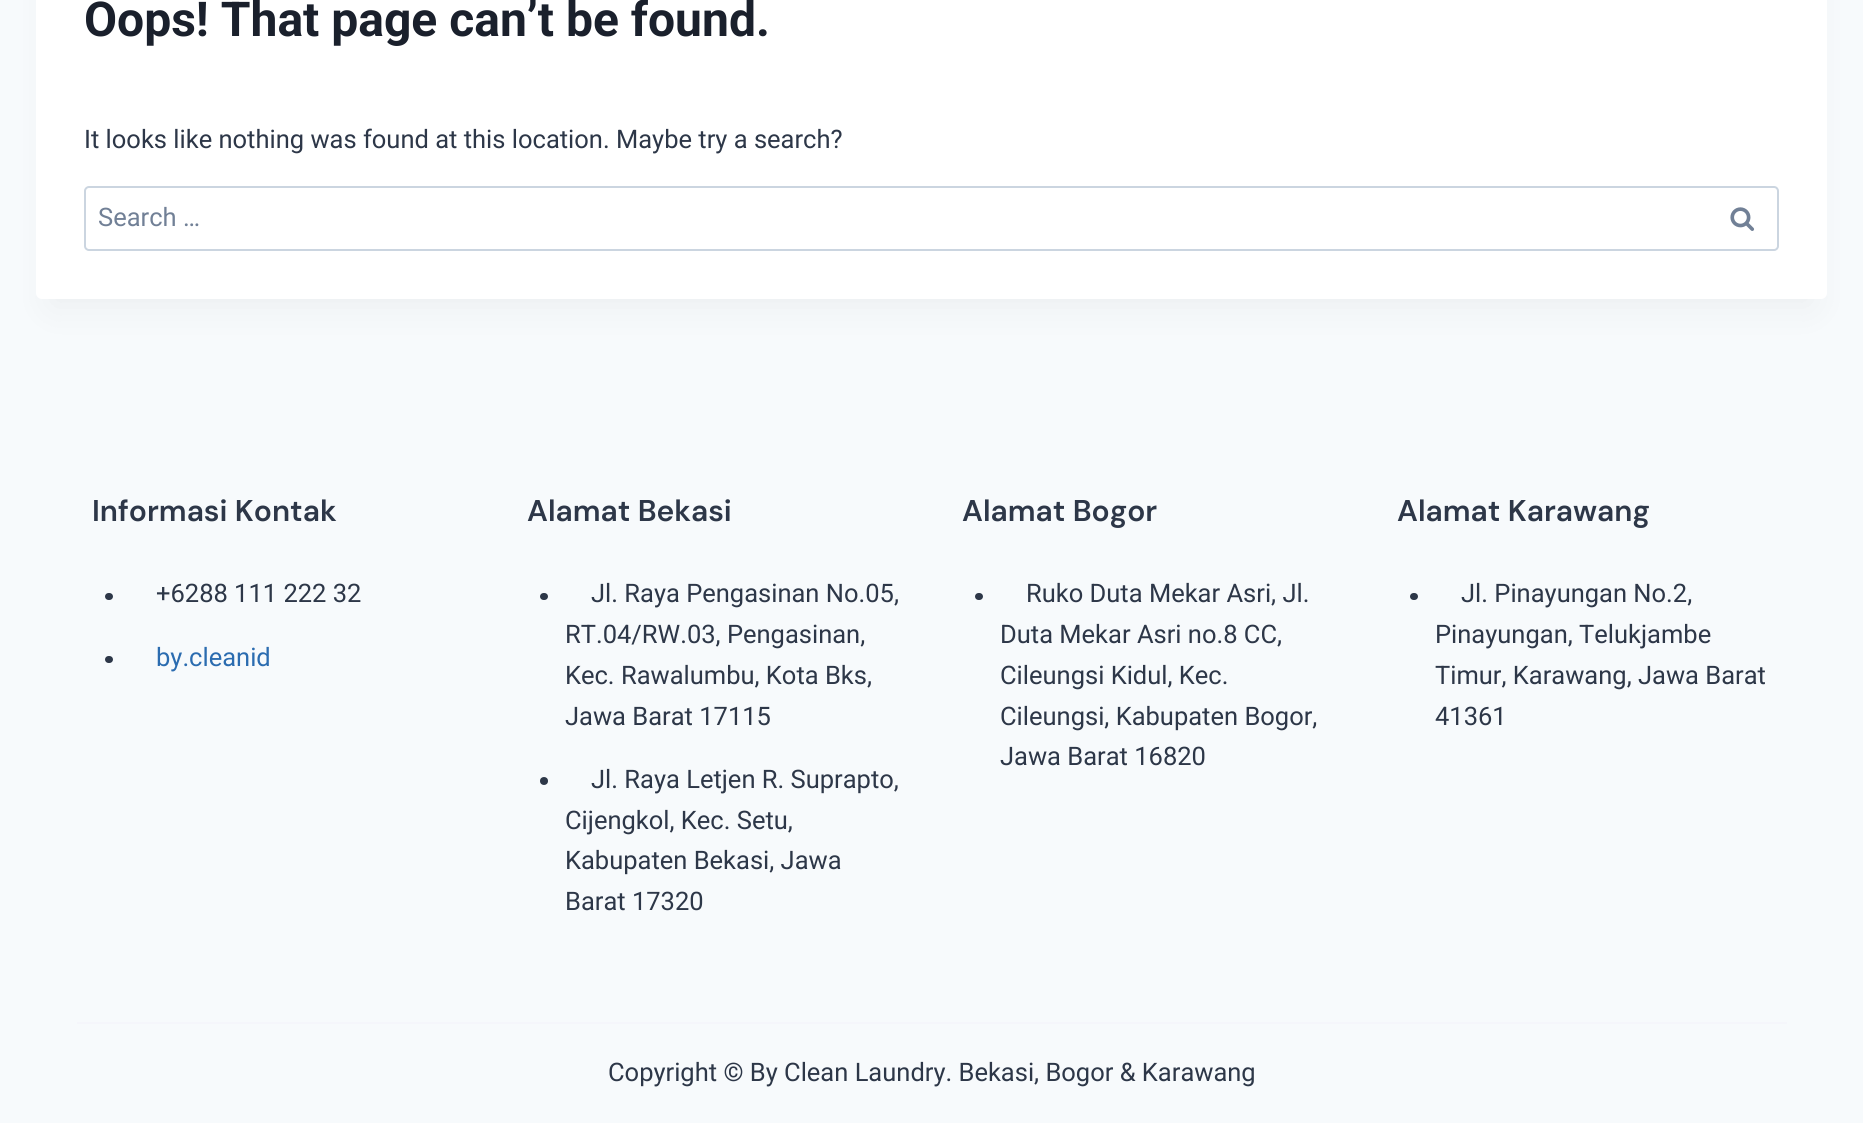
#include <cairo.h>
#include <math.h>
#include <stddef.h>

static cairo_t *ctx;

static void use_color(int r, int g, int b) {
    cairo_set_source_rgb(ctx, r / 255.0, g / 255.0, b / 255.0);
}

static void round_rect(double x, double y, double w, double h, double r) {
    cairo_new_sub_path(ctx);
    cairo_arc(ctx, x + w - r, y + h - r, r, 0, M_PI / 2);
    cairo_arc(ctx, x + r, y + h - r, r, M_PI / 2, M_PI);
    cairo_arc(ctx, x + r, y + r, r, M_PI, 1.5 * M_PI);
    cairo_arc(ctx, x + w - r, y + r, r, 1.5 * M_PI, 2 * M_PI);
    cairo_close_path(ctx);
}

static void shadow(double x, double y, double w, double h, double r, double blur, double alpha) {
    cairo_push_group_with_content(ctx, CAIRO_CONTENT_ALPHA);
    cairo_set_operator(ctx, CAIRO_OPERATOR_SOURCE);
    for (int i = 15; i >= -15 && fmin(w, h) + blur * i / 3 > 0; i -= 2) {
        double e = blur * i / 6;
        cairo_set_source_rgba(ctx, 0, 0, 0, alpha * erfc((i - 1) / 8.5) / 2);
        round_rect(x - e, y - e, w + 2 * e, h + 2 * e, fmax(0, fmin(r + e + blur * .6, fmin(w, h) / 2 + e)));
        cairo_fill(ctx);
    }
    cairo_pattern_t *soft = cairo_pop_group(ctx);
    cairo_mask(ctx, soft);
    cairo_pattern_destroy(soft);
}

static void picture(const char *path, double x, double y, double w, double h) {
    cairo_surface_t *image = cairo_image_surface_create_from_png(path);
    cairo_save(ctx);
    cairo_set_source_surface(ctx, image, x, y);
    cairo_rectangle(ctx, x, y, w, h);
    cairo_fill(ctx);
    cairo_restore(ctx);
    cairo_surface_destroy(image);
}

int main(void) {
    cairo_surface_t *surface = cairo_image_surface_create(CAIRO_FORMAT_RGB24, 1863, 1123);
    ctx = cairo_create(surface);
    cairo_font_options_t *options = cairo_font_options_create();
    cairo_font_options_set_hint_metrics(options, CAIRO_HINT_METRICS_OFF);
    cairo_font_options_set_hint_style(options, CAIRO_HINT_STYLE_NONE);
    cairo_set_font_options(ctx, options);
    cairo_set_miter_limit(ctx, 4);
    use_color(247, 250, 252);
    cairo_paint(ctx);
    use_color(0, 0, 0);
    shadow(51, -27, 1761, 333, 0, 19, 0.05);
    use_color(255, 255, 255);
    round_rect(36, -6, 1791, 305, 6);
    cairo_fill(ctx);
    cairo_select_font_face(ctx, "Roboto", CAIRO_FONT_SLANT_NORMAL, CAIRO_FONT_WEIGHT_BOLD);
    cairo_set_font_size(ctx, 48);
    use_color(26, 32, 44);
    cairo_move_to(ctx, 84, 36);
    cairo_show_text(ctx, "Oops! That page can’t be found.");
    cairo_select_font_face(ctx, "Roboto", CAIRO_FONT_SLANT_NORMAL, CAIRO_FONT_WEIGHT_NORMAL);
    cairo_set_font_size(ctx, 25.5);
    use_color(45, 55, 72);
    cairo_move_to(ctx, 84, 148);
    cairo_show_text(ctx, "It looks like nothing was found at this location. Maybe try a search?");
    round_rect(85, 187, 1693, 63, 4);
    use_color(203, 213, 224);
    cairo_stroke(ctx);
    use_color(113, 128, 150);
    cairo_move_to(ctx, 98, 226);
    cairo_show_text(ctx, "Search …");
    picture("img1.png", 1730, 207, 25, 24);
    cairo_select_font_face(ctx, "DM Sans SemiBold", CAIRO_FONT_SLANT_NORMAL, CAIRO_FONT_WEIGHT_NORMAL);
    cairo_set_font_size(ctx, 30);
    use_color(45, 55, 72);
    cairo_move_to(ctx, 92, 521);
    cairo_show_text(ctx, "Informasi Kontak");
    round_rect(105, 593, 8, 7, 3.5);
    cairo_fill(ctx);
    cairo_select_font_face(ctx, "Roboto", CAIRO_FONT_SLANT_NORMAL, CAIRO_FONT_WEIGHT_NORMAL);
    cairo_set_font_size(ctx, 25.5);
    cairo_move_to(ctx, 156, 602);
    cairo_show_text(ctx, "+6288 111 222 32");
    round_rect(105, 656, 8, 7, 3.5);
    cairo_fill(ctx);
    use_color(43, 108, 176);
    cairo_move_to(ctx, 156, 666);
    cairo_show_text(ctx, "by.cleanid");
    cairo_select_font_face(ctx, "DM Sans SemiBold", CAIRO_FONT_SLANT_NORMAL, CAIRO_FONT_WEIGHT_NORMAL);
    cairo_set_font_size(ctx, 30);
    use_color(45, 55, 72);
    cairo_move_to(ctx, 527, 521);
    cairo_show_text(ctx, "Alamat Bekasi");
    round_rect(540, 593, 8, 7, 3.5);
    cairo_fill(ctx);
    cairo_select_font_face(ctx, "Roboto", CAIRO_FONT_SLANT_NORMAL, CAIRO_FONT_WEIGHT_NORMAL);
    cairo_set_font_size(ctx, 25.5);
    cairo_move_to(ctx, 591, 602);
    cairo_show_text(ctx, "Jl. Raya Pengasinan No.05,");
    cairo_move_to(ctx, 565, 643);
    cairo_show_text(ctx, "RT.04/RW.03, Pengasinan,");
    cairo_move_to(ctx, 565, 684);
    cairo_show_text(ctx, "Kec. Rawalumbu, Kota Bks,");
    cairo_move_to(ctx, 565, 725);
    cairo_show_text(ctx, "Jawa Barat 17115");
    cairo_new_path(ctx);
    cairo_arc(ctx, 544, 781, 4, 0, 2 * M_PI);
    cairo_fill(ctx);
    cairo_move_to(ctx, 591, 788);
    cairo_show_text(ctx, "Jl. Raya Letjen R. Suprapto,");
    cairo_move_to(ctx, 565, 829);
    cairo_show_text(ctx, "Cijengkol, Kec. Setu,");
    cairo_move_to(ctx, 565, 869);
    cairo_show_text(ctx, "Kabupaten Bekasi, Jawa");
    cairo_move_to(ctx, 565, 910);
    cairo_show_text(ctx, "Barat 17320");
    cairo_select_font_face(ctx, "DM Sans SemiBold", CAIRO_FONT_SLANT_NORMAL, CAIRO_FONT_WEIGHT_NORMAL);
    cairo_set_font_size(ctx, 30);
    cairo_move_to(ctx, 962, 521);
    cairo_show_text(ctx, "Alamat Bogor");
    round_rect(975, 593, 8, 7, 3.5);
    cairo_fill(ctx);
    cairo_select_font_face(ctx, "Roboto", CAIRO_FONT_SLANT_NORMAL, CAIRO_FONT_WEIGHT_NORMAL);
    cairo_set_font_size(ctx, 25.5);
    cairo_move_to(ctx, 1026, 602);
    cairo_show_text(ctx, "Ruko Duta Mekar Asri, Jl.");
    cairo_move_to(ctx, 1000, 643);
    cairo_show_text(ctx, "Duta Mekar Asri no.8 CC,");
    cairo_move_to(ctx, 1000, 684);
    cairo_show_text(ctx, "Cileungsi Kidul, Kec.");
    cairo_move_to(ctx, 1000, 725);
    cairo_show_text(ctx, "Cileungsi, Kabupaten Bogor,");
    cairo_move_to(ctx, 1000, 765);
    cairo_show_text(ctx, "Jawa Barat 16820");
    cairo_select_font_face(ctx, "DM Sans SemiBold", CAIRO_FONT_SLANT_NORMAL, CAIRO_FONT_WEIGHT_NORMAL);
    cairo_set_font_size(ctx, 30);
    cairo_move_to(ctx, 1397, 521);
    cairo_show_text(ctx, "Alamat Karawang");
    round_rect(1410, 593, 8, 7, 3.5);
    cairo_fill(ctx);
    cairo_select_font_face(ctx, "Roboto", CAIRO_FONT_SLANT_NORMAL, CAIRO_FONT_WEIGHT_NORMAL);
    cairo_set_font_size(ctx, 25.5);
    cairo_move_to(ctx, 1461, 602);
    cairo_show_text(ctx, "Jl. Pinayungan No.2,");
    cairo_move_to(ctx, 1435, 643);
    cairo_show_text(ctx, "Pinayungan, Telukjambe");
    cairo_move_to(ctx, 1435, 684);
    cairo_show_text(ctx, "Timur, Karawang, Jawa Barat");
    cairo_move_to(ctx, 1435, 725);
    cairo_show_text(ctx, "41361");
    use_color(245, 246, 251);
    cairo_rectangle(ctx, 77, 1022, 1710, 2);
    cairo_fill(ctx);
    use_color(45, 55, 72);
    cairo_move_to(ctx, 608, 1081);
    cairo_show_text(ctx, "Copyright © By Clean Laundry. Bekasi, Bogor & Karawang");
    cairo_surface_write_to_png(surface, "result.png");
    cairo_font_options_destroy(options);
    cairo_destroy(ctx);
    cairo_surface_destroy(surface);
    return 0;
}
